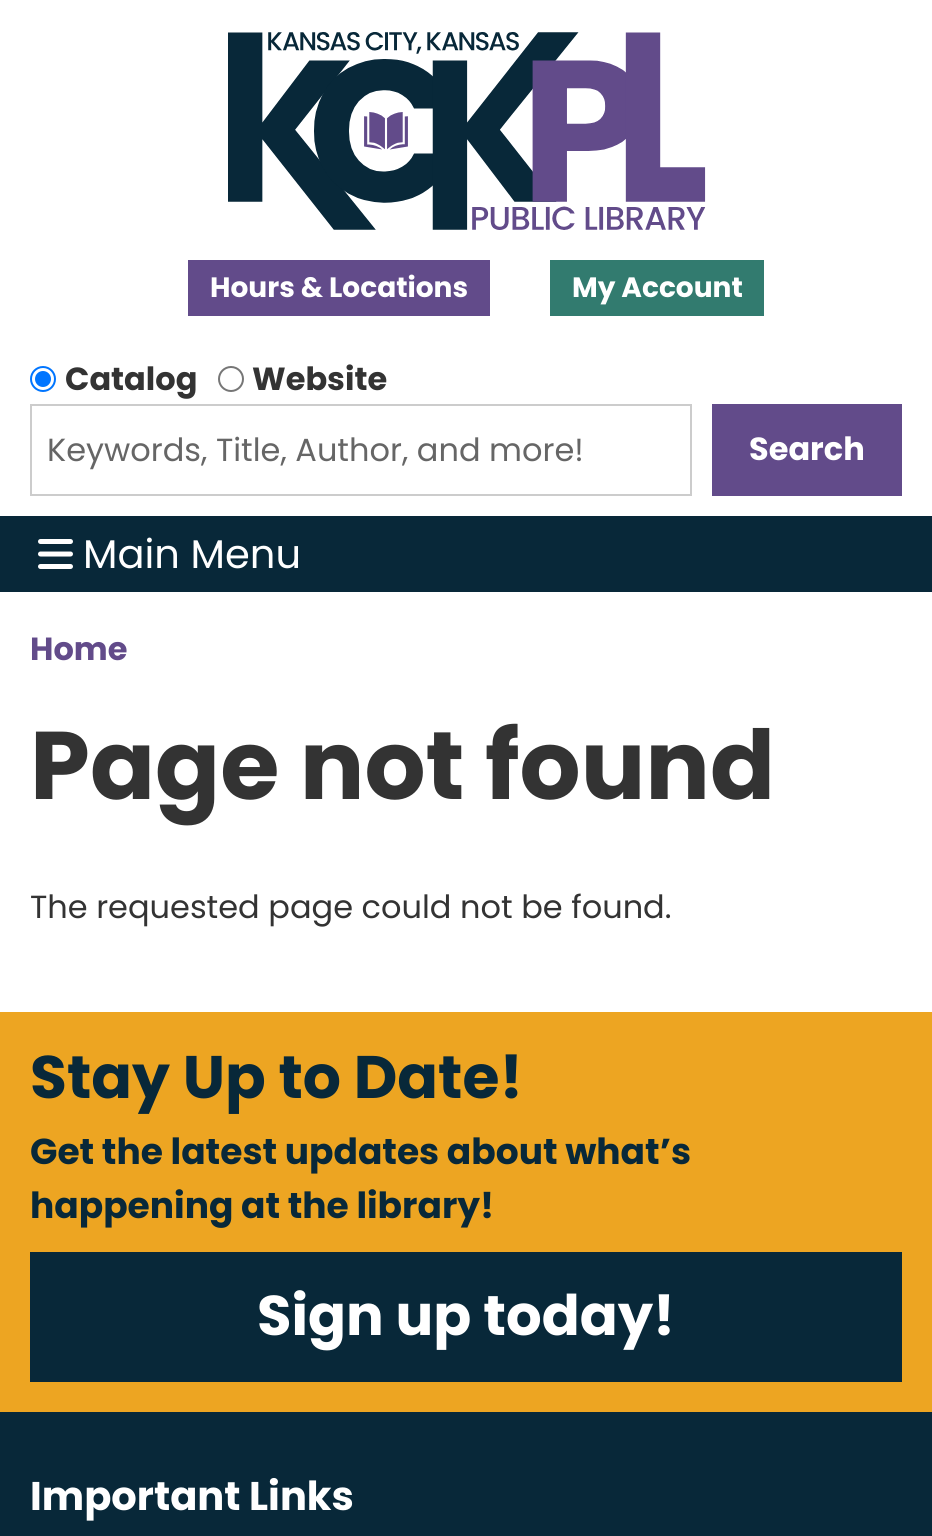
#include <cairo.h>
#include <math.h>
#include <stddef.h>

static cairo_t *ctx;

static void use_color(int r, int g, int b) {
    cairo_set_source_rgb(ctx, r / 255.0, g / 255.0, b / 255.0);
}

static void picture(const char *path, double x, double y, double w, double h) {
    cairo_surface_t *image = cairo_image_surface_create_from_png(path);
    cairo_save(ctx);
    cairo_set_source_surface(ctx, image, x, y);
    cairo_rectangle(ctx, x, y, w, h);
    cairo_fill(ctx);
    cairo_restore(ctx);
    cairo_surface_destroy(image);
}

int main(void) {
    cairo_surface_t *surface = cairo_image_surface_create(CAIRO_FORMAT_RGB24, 932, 1536);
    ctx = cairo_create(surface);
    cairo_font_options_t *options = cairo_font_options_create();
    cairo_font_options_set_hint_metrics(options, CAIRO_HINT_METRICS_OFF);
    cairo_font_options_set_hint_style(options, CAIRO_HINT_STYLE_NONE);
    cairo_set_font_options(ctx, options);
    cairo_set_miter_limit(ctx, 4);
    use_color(255, 255, 255);
    cairo_paint(ctx);
    picture("img1.png", 228, 32, 478, 198);
    use_color(98, 75, 138);
    cairo_rectangle(ctx, 188, 260, 302, 56);
    cairo_fill(ctx);
    cairo_select_font_face(ctx, "Poppins", CAIRO_FONT_SLANT_NORMAL, CAIRO_FONT_WEIGHT_BOLD);
    cairo_set_font_size(ctx, 28);
    use_color(255, 255, 255);
    cairo_move_to(ctx, 210, 297);
    cairo_show_text(ctx, "Hours & Locations");
    use_color(50, 123, 111);
    cairo_rectangle(ctx, 550, 260, 214, 56);
    cairo_fill(ctx);
    use_color(255, 255, 255);
    cairo_move_to(ctx, 572, 297);
    cairo_show_text(ctx, "My Account");
    cairo_new_path(ctx);
    cairo_arc(ctx, 43, 379, 12, 0, 2 * M_PI);
    use_color(0, 117, 255);
    cairo_stroke(ctx);
    cairo_arc(ctx, 43, 379, 8, 0, 2 * M_PI);
    cairo_fill(ctx);
    cairo_set_font_size(ctx, 32);
    use_color(51, 51, 51);
    cairo_move_to(ctx, 65, 390);
    cairo_show_text(ctx, "Catalog");
    cairo_new_path(ctx);
    cairo_arc(ctx, 231, 379, 12, 0, 2 * M_PI);
    use_color(118, 118, 118);
    cairo_stroke(ctx);
    use_color(51, 51, 51);
    cairo_move_to(ctx, 252, 390);
    cairo_show_text(ctx, "Website");
    cairo_rectangle(ctx, 31, 405, 660, 90);
    use_color(204, 204, 204);
    cairo_stroke(ctx);
    cairo_select_font_face(ctx, "Poppins", CAIRO_FONT_SLANT_NORMAL, CAIRO_FONT_WEIGHT_NORMAL);
    use_color(102, 102, 102);
    cairo_move_to(ctx, 47, 461);
    cairo_show_text(ctx, "Keywords, Title, Author, and more!");
    use_color(98, 75, 138);
    cairo_rectangle(ctx, 712, 404, 190, 92);
    cairo_fill(ctx);
    cairo_select_font_face(ctx, "Poppins", CAIRO_FONT_SLANT_NORMAL, CAIRO_FONT_WEIGHT_BOLD);
    use_color(255, 255, 255);
    cairo_move_to(ctx, 749, 460);
    cairo_show_text(ctx, "Search");
    use_color(8, 40, 57);
    cairo_rectangle(ctx, 0, 516, 932, 76);
    cairo_fill(ctx);
    picture("img2.png", 38, 539, 35, 30);
    cairo_select_font_face(ctx, "Poppins", CAIRO_FONT_SLANT_NORMAL, CAIRO_FONT_WEIGHT_NORMAL);
    cairo_set_font_size(ctx, 40);
    use_color(255, 255, 255);
    cairo_move_to(ctx, 83, 568);
    cairo_show_text(ctx, "Main Menu");
    cairo_select_font_face(ctx, "Poppins", CAIRO_FONT_SLANT_NORMAL, CAIRO_FONT_WEIGHT_BOLD);
    cairo_set_font_size(ctx, 32);
    use_color(98, 75, 138);
    cairo_move_to(ctx, 30, 660);
    cairo_show_text(ctx, "Home");
    cairo_set_font_size(ctx, 96);
    use_color(51, 51, 51);
    cairo_move_to(ctx, 30, 799);
    cairo_show_text(ctx, "Page not found");
    cairo_select_font_face(ctx, "Poppins", CAIRO_FONT_SLANT_NORMAL, CAIRO_FONT_WEIGHT_NORMAL);
    cairo_set_font_size(ctx, 32);
    cairo_move_to(ctx, 30, 918);
    cairo_show_text(ctx, "The requested page could not be found.");
    use_color(237, 165, 34);
    cairo_rectangle(ctx, 0, 1012, 932, 400);
    cairo_fill(ctx);
    cairo_select_font_face(ctx, "Poppins", CAIRO_FONT_SLANT_NORMAL, CAIRO_FONT_WEIGHT_BOLD);
    cairo_set_font_size(ctx, 60);
    use_color(8, 40, 57);
    cairo_move_to(ctx, 30, 1098);
    cairo_show_text(ctx, "Stay Up to Date!");
    cairo_set_font_size(ctx, 36);
    cairo_move_to(ctx, 30, 1164);
    cairo_show_text(ctx, "Get the latest updates about what’s");
    cairo_move_to(ctx, 30, 1218);
    cairo_show_text(ctx, "happening at the library!");
    cairo_rectangle(ctx, 30, 1252, 872, 130);
    cairo_fill(ctx);
    cairo_set_font_size(ctx, 56);
    use_color(255, 255, 255);
    cairo_move_to(ctx, 257, 1335);
    cairo_show_text(ctx, "Sign up today!");
    use_color(8, 40, 57);
    cairo_rectangle(ctx, 0, 1412, 932, 124);
    cairo_fill(ctx);
    cairo_set_font_size(ctx, 40);
    use_color(255, 255, 255);
    cairo_move_to(ctx, 30, 1510);
    cairo_show_text(ctx, "Important Links");
    cairo_surface_write_to_png(surface, "result.png");
    cairo_font_options_destroy(options);
    cairo_destroy(ctx);
    cairo_surface_destroy(surface);
    return 0;
}
